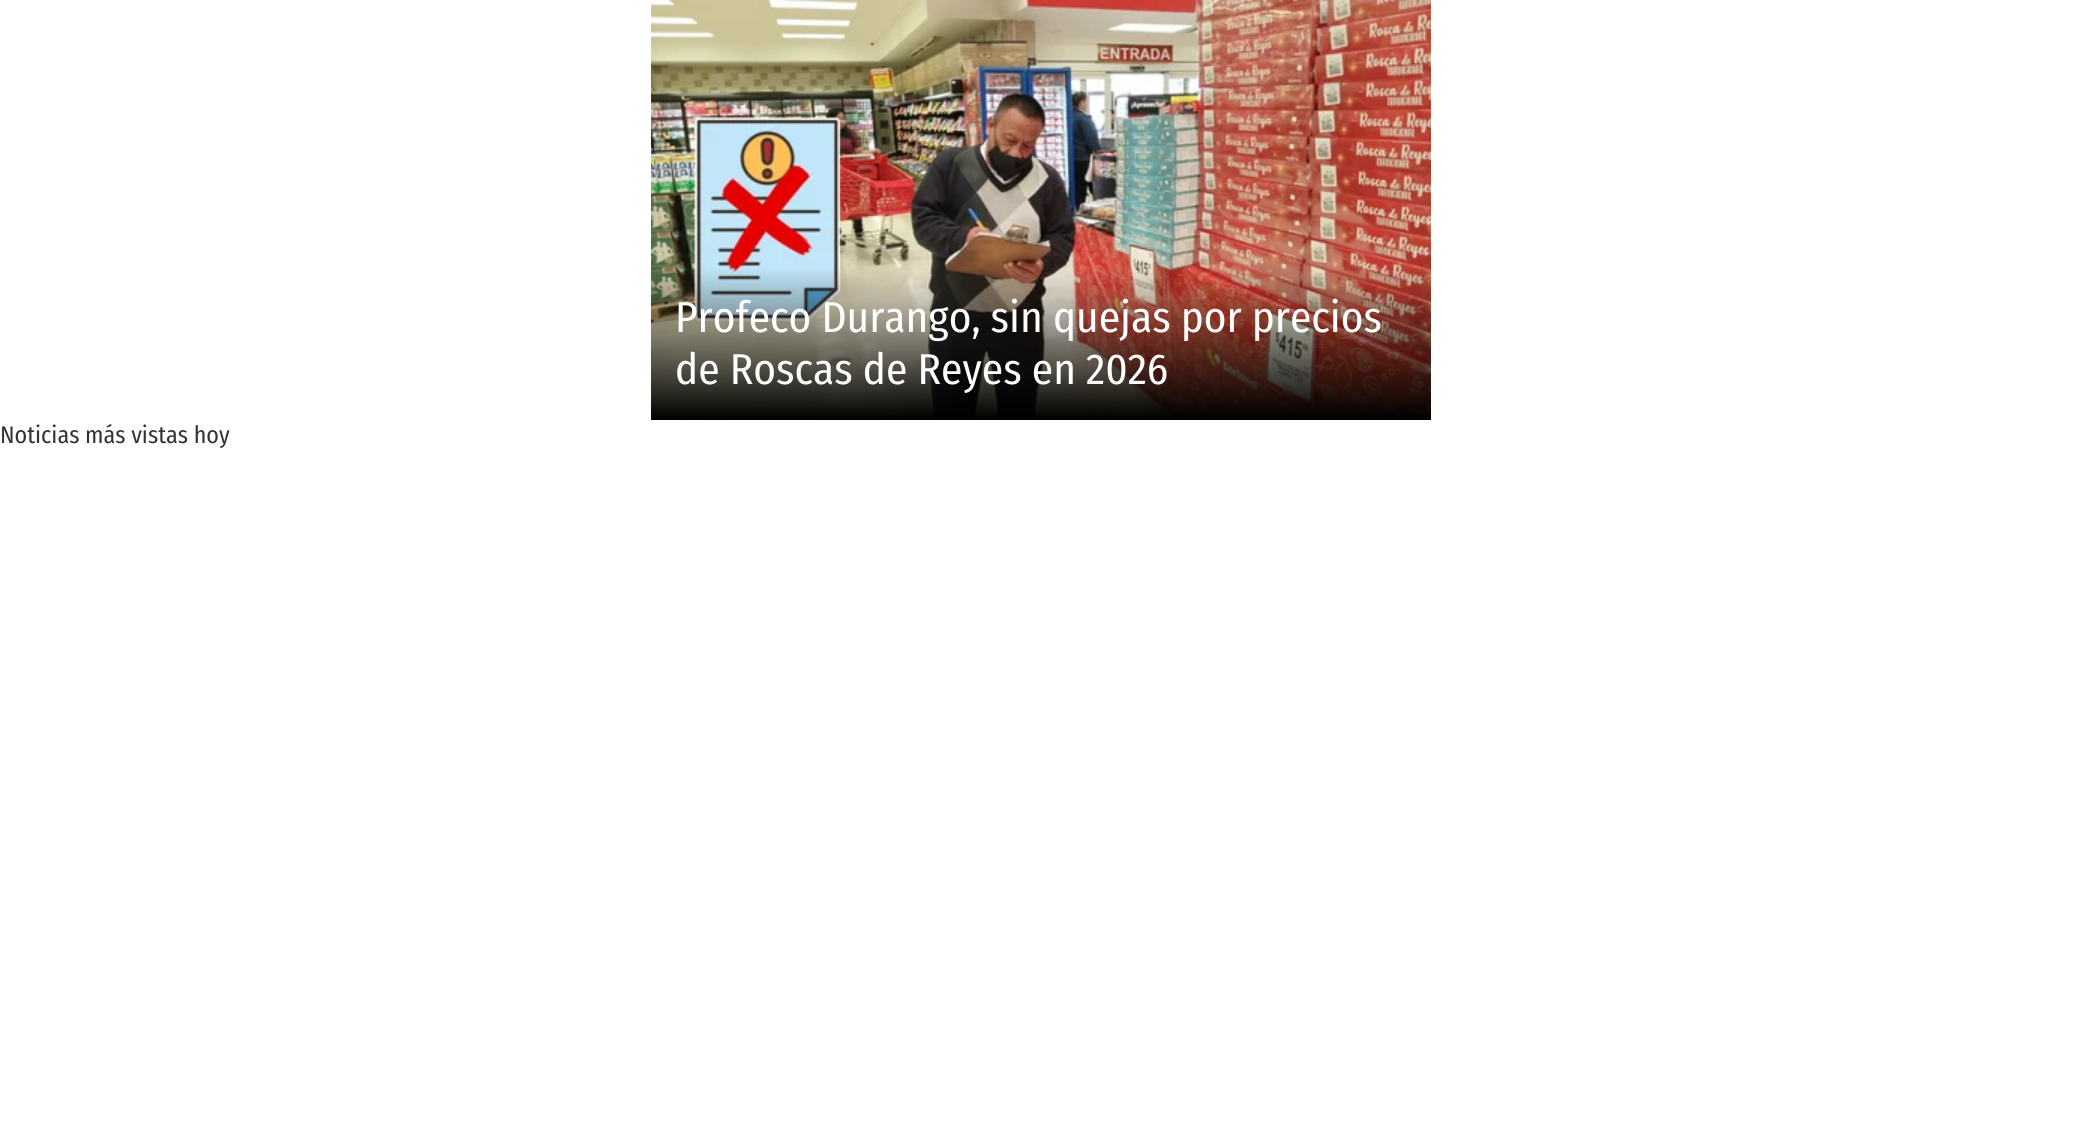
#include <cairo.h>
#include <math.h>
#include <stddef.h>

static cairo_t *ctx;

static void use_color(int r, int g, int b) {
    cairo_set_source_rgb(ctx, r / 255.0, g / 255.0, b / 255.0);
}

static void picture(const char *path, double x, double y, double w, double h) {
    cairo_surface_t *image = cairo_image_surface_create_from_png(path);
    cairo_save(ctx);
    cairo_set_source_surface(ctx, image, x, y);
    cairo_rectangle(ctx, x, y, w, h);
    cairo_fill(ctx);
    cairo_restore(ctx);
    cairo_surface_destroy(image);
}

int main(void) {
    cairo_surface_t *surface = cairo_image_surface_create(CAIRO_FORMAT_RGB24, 2081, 1148);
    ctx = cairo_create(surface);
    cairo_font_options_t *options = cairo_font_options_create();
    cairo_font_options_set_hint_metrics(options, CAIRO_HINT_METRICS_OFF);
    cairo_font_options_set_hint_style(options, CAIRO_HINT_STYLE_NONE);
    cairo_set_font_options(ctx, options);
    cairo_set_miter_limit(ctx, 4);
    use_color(255, 255, 255);
    cairo_paint(ctx);
    picture("img1.png", 651, 0, 780, 420);
    cairo_select_font_face(ctx, "Fira Sans Condensed", CAIRO_FONT_SLANT_NORMAL, CAIRO_FONT_WEIGHT_NORMAL);
    cairo_set_font_size(ctx, 43.25);
    use_color(255, 255, 255);
    cairo_move_to(ctx, 675, 332);
    cairo_show_text(ctx, "Profeco Durango, sin quejas por precios");
    cairo_move_to(ctx, 675, 384);
    cairo_show_text(ctx, "de Roscas de Reyes en 2026");
    cairo_set_font_size(ctx, 24);
    use_color(51, 51, 51);
    cairo_move_to(ctx, 0, 443);
    cairo_show_text(ctx, "Noticias más vistas hoy");
    cairo_surface_write_to_png(surface, "result.png");
    cairo_font_options_destroy(options);
    cairo_destroy(ctx);
    cairo_surface_destroy(surface);
    return 0;
}
